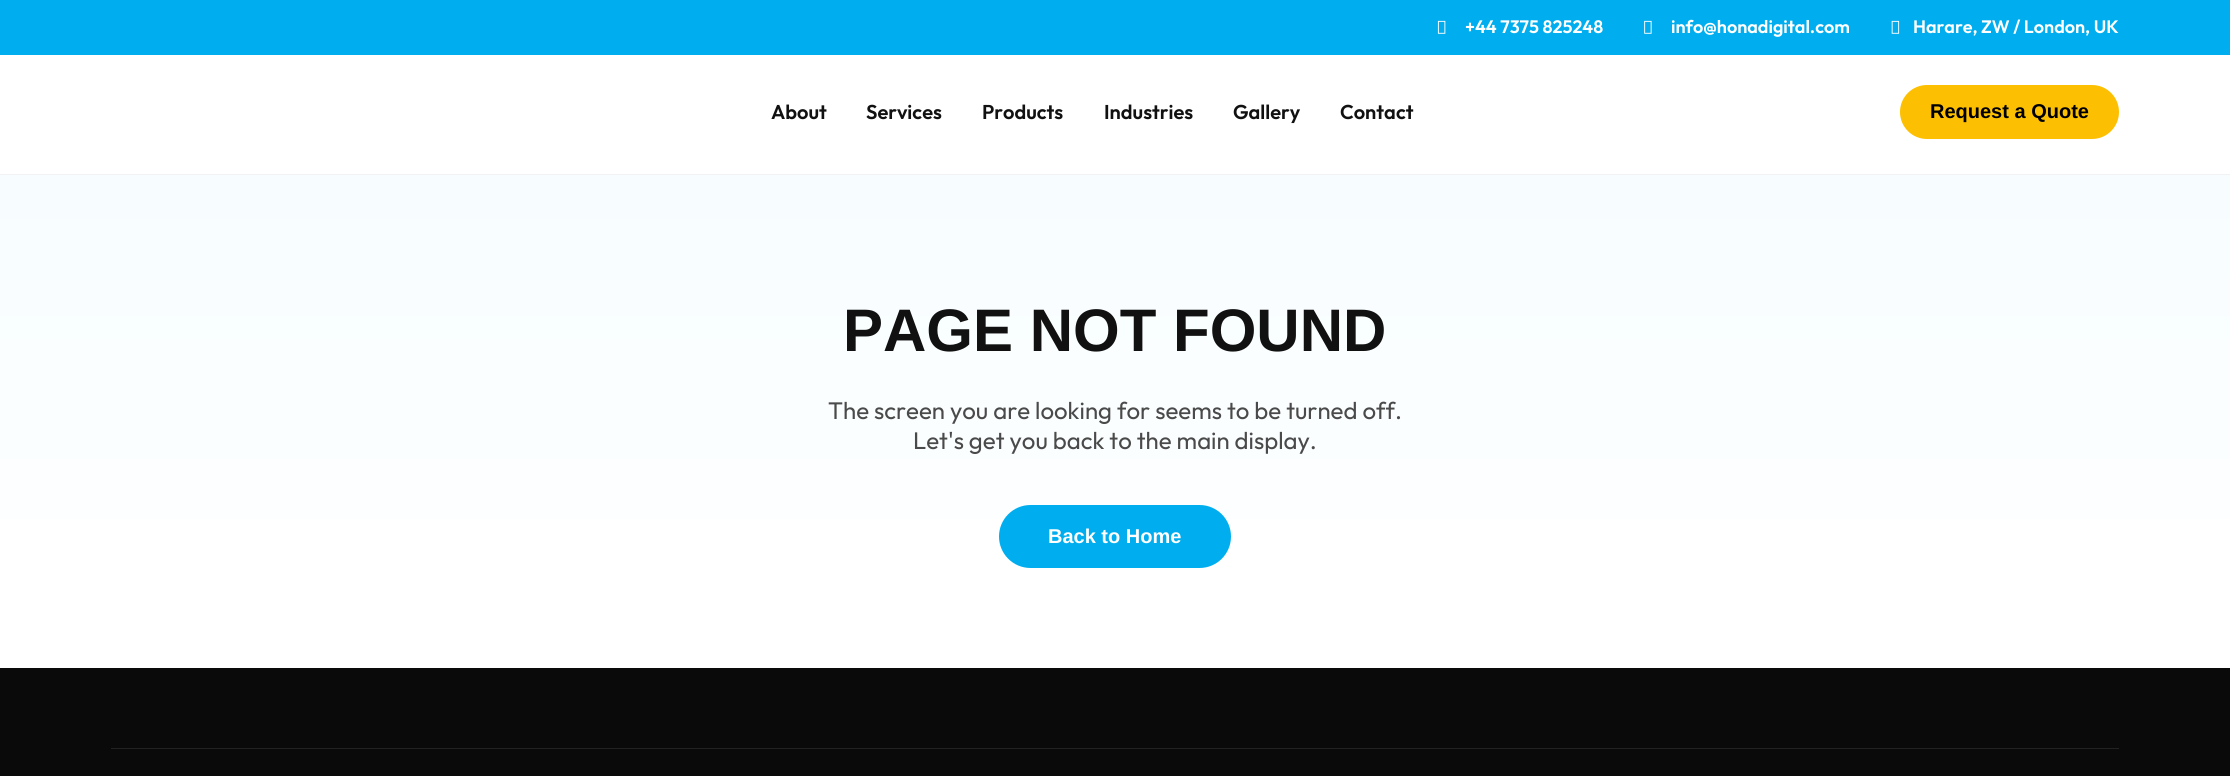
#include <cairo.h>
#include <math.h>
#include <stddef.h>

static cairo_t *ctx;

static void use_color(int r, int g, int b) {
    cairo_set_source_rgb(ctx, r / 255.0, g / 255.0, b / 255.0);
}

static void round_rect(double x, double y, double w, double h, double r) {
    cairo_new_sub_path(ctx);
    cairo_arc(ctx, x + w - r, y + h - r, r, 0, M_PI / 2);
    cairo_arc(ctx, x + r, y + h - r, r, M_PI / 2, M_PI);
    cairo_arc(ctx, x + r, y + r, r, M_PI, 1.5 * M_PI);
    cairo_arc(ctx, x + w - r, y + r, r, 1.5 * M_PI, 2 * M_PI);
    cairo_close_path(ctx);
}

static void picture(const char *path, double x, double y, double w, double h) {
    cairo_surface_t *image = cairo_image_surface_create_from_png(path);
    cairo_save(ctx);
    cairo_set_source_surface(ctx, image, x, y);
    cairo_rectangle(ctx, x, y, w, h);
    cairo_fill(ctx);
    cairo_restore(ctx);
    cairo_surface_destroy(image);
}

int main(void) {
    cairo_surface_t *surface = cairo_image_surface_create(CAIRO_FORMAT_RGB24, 2230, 776);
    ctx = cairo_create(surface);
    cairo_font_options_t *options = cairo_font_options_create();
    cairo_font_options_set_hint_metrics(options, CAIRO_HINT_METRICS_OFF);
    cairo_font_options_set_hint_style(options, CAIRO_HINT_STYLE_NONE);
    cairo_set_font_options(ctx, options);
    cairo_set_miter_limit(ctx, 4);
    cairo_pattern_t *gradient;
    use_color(255, 255, 255);
    cairo_paint(ctx);
    use_color(0, 174, 239);
    cairo_rectangle(ctx, 0, 0, 2230, 55);
    cairo_fill(ctx);
    picture("img1.png", 1437, 20, 9, 14);
    cairo_select_font_face(ctx, "Outfit SemiBold", CAIRO_FONT_SLANT_NORMAL, CAIRO_FONT_WEIGHT_NORMAL);
    cairo_set_font_size(ctx, 18);
    use_color(255, 255, 255);
    cairo_move_to(ctx, 1465, 33);
    cairo_show_text(ctx, "+44 7375 825248");
    picture("img2.png", 1644, 20, 8, 14);
    cairo_move_to(ctx, 1671, 33);
    cairo_show_text(ctx, "info@honadigital.com");
    picture("img3.png", 1891, 20, 9, 14);
    cairo_move_to(ctx, 1913, 33);
    cairo_show_text(ctx, "Harare, ZW / London, UK");
    use_color(242, 242, 242);
    cairo_rectangle(ctx, 0, 174, 2230, 1);
    cairo_fill(ctx);
    cairo_set_font_size(ctx, 20);
    use_color(17, 17, 17);
    cairo_move_to(ctx, 771, 119);
    cairo_show_text(ctx, "About");
    cairo_move_to(ctx, 866, 119);
    cairo_show_text(ctx, "Services");
    cairo_move_to(ctx, 982, 119);
    cairo_show_text(ctx, "Products");
    cairo_move_to(ctx, 1104, 119);
    cairo_show_text(ctx, "Industries");
    cairo_move_to(ctx, 1233, 119);
    cairo_show_text(ctx, "Gallery");
    cairo_move_to(ctx, 1340, 119);
    cairo_show_text(ctx, "Contact");
    use_color(252, 191, 1);
    round_rect(1900, 85, 219, 54, 27);
    cairo_fill(ctx);
    cairo_select_font_face(ctx, "Liberation Sans", CAIRO_FONT_SLANT_NORMAL, CAIRO_FONT_WEIGHT_BOLD);
    use_color(0, 0, 0);
    cairo_move_to(ctx, 1930, 118);
    cairo_show_text(ctx, "Request a Quote");
    gradient = cairo_pattern_create_linear(1115, -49, 1115, 668);
    cairo_pattern_add_color_stop_rgba(gradient, 0, 0.953, 0.988, 1, 1);
    cairo_pattern_add_color_stop_rgba(gradient, 1, 1, 1, 1, 1);
    cairo_set_source(ctx, gradient);
    cairo_pattern_destroy(gradient);
    cairo_rectangle(ctx, 0, 175, 2230, 344);
    cairo_fill(ctx);
    cairo_set_font_size(ctx, 60);
    use_color(17, 17, 17);
    cairo_move_to(ctx, 843, 351);
    cairo_show_text(ctx, "PAGE NOT FOUND");
    cairo_select_font_face(ctx, "Outfit", CAIRO_FONT_SLANT_NORMAL, CAIRO_FONT_WEIGHT_NORMAL);
    cairo_set_font_size(ctx, 24);
    use_color(74, 74, 74);
    cairo_move_to(ctx, 828, 419);
    cairo_show_text(ctx, "The screen you are looking for seems to be turned off.");
    cairo_move_to(ctx, 913, 449);
    cairo_show_text(ctx, "Let's get you back to the main display.");
    use_color(0, 174, 239);
    round_rect(999, 505, 232, 63, 31.5);
    cairo_fill(ctx);
    cairo_select_font_face(ctx, "Liberation Sans", CAIRO_FONT_SLANT_NORMAL, CAIRO_FONT_WEIGHT_BOLD);
    cairo_set_font_size(ctx, 20);
    use_color(255, 255, 255);
    cairo_move_to(ctx, 1048, 543);
    cairo_show_text(ctx, "Back to Home");
    use_color(10, 10, 10);
    cairo_rectangle(ctx, 0, 668, 2230, 108);
    cairo_fill(ctx);
    use_color(34, 34, 34);
    cairo_rectangle(ctx, 111, 748, 2008, 1);
    cairo_fill(ctx);
    cairo_surface_write_to_png(surface, "result.png");
    cairo_font_options_destroy(options);
    cairo_destroy(ctx);
    cairo_surface_destroy(surface);
    return 0;
}
